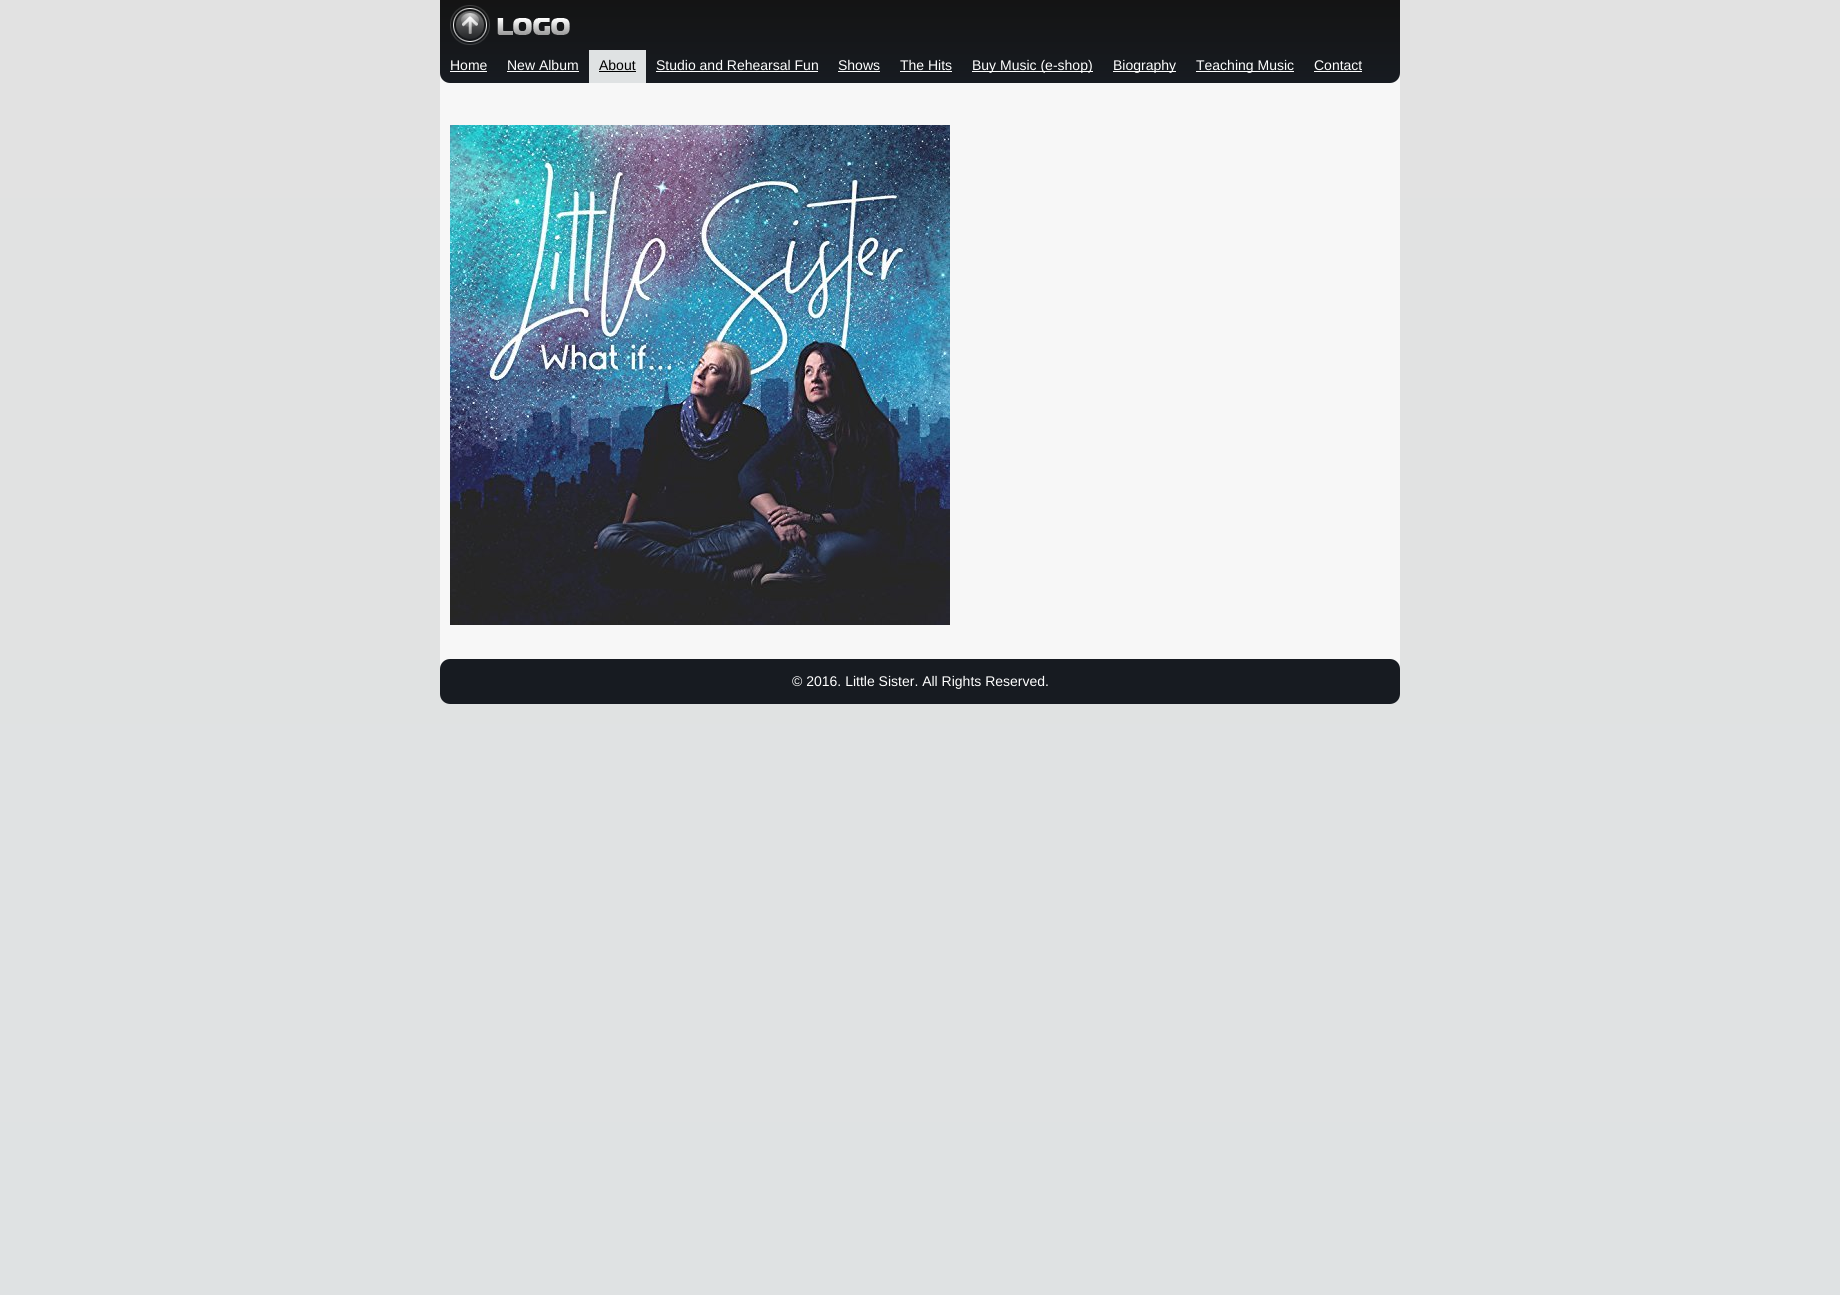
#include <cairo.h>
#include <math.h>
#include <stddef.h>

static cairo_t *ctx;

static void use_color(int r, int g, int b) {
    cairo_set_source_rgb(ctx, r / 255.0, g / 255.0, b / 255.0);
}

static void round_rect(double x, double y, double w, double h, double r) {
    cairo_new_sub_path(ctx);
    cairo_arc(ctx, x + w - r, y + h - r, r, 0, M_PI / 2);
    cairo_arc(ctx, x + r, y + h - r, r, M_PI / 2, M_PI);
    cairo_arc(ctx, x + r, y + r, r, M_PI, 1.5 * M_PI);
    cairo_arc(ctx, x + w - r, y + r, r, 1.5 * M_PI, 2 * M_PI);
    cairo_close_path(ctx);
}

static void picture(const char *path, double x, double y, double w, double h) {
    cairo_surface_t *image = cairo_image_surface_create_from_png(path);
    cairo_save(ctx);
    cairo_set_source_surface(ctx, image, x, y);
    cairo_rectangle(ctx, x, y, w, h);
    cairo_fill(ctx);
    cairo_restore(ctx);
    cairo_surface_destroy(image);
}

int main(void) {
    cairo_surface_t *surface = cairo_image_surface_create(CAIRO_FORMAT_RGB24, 1840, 1295);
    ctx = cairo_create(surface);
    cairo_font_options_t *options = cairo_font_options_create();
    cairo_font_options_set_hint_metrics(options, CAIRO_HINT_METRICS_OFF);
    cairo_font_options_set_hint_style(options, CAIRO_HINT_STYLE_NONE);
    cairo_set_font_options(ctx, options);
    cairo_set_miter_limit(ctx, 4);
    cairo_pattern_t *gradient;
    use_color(255, 255, 255);
    cairo_paint(ctx);
    gradient = cairo_pattern_create_linear(920, 0, 920, 1295);
    cairo_pattern_add_color_stop_rgba(gradient, 0, 0.886, 0.886, 0.886, 1);
    cairo_pattern_add_color_stop_rgba(gradient, 1, 0.875, 0.886, 0.89, 1);
    cairo_set_source(ctx, gradient);
    cairo_pattern_destroy(gradient);
    cairo_rectangle(ctx, 0, 0, 1840, 1295);
    cairo_fill(ctx);
    use_color(247, 247, 247);
    round_rect(440, 0, 960, 704, 10);
    cairo_fill(ctx);
    gradient = cairo_pattern_create_linear(920, 0, 920, 83);
    cairo_pattern_add_color_stop_rgba(gradient, 0, 0.078, 0.078, 0.078, 1);
    cairo_pattern_add_color_stop_rgba(gradient, 1, 0.09, 0.106, 0.129, 1);
    cairo_set_source(ctx, gradient);
    cairo_pattern_destroy(gradient);
    cairo_new_path(ctx);
    cairo_move_to(ctx, 440, 0);
    cairo_line_to(ctx, 1400, 0);
    cairo_line_to(ctx, 1400, 73);
    cairo_curve_to(ctx, 1400, 78.5, 1395.5, 83, 1390, 83);
    cairo_line_to(ctx, 450, 83);
    cairo_curve_to(ctx, 444.5, 83, 440, 78.5, 440, 73);
    cairo_close_path(ctx);
    cairo_fill(ctx);
    picture("img1.png", 450, 5, 120, 40);
    cairo_select_font_face(ctx, "Liberation Sans", CAIRO_FONT_SLANT_NORMAL, CAIRO_FONT_WEIGHT_NORMAL);
    cairo_set_font_size(ctx, 14);
    use_color(255, 255, 255);
    cairo_move_to(ctx, 450, 70);
    cairo_show_text(ctx, "Home");
    cairo_rectangle(ctx, 450, 71, 37, 1);
    cairo_fill(ctx);
    cairo_move_to(ctx, 507, 70);
    cairo_show_text(ctx, "New Album");
    cairo_rectangle(ctx, 507, 71, 72, 1);
    cairo_fill(ctx);
    use_color(223, 226, 227);
    cairo_rectangle(ctx, 589, 50, 57, 33);
    cairo_fill(ctx);
    use_color(0, 0, 0);
    cairo_move_to(ctx, 599, 70);
    cairo_show_text(ctx, "About");
    cairo_rectangle(ctx, 599, 71, 37, 1);
    cairo_fill(ctx);
    use_color(255, 255, 255);
    cairo_move_to(ctx, 656, 70);
    cairo_show_text(ctx, "Studio and Rehearsal Fun");
    cairo_rectangle(ctx, 656, 71, 162, 1);
    cairo_fill(ctx);
    cairo_move_to(ctx, 838, 70);
    cairo_show_text(ctx, "Shows");
    cairo_rectangle(ctx, 838, 71, 42, 1);
    cairo_fill(ctx);
    cairo_move_to(ctx, 900, 70);
    cairo_show_text(ctx, "The Hits");
    cairo_rectangle(ctx, 900, 71, 52, 1);
    cairo_fill(ctx);
    cairo_rectangle(ctx, 972, 71, 121, 1);
    cairo_fill(ctx);
    cairo_move_to(ctx, 972, 70);
    cairo_show_text(ctx, "Buy Music (e-shop)");
    cairo_rectangle(ctx, 1113, 71, 63, 1);
    cairo_fill(ctx);
    cairo_move_to(ctx, 1113, 70);
    cairo_show_text(ctx, "Biography");
    cairo_rectangle(ctx, 1196, 71, 98, 1);
    cairo_fill(ctx);
    cairo_move_to(ctx, 1196, 70);
    cairo_show_text(ctx, "Teaching Music");
    cairo_move_to(ctx, 1314, 70);
    cairo_show_text(ctx, "Contact");
    cairo_rectangle(ctx, 1314, 71, 48, 1);
    cairo_fill(ctx);
    picture("img2.png", 450, 125, 500, 500);
    use_color(23, 27, 33);
    round_rect(440, 659, 960, 45, 10);
    cairo_fill(ctx);
    use_color(255, 255, 255);
    cairo_move_to(ctx, 792, 686);
    cairo_show_text(ctx, "© 2016. Little Sister. All Rights Reserved.");
    cairo_surface_write_to_png(surface, "result.png");
    cairo_font_options_destroy(options);
    cairo_destroy(ctx);
    cairo_surface_destroy(surface);
    return 0;
}
